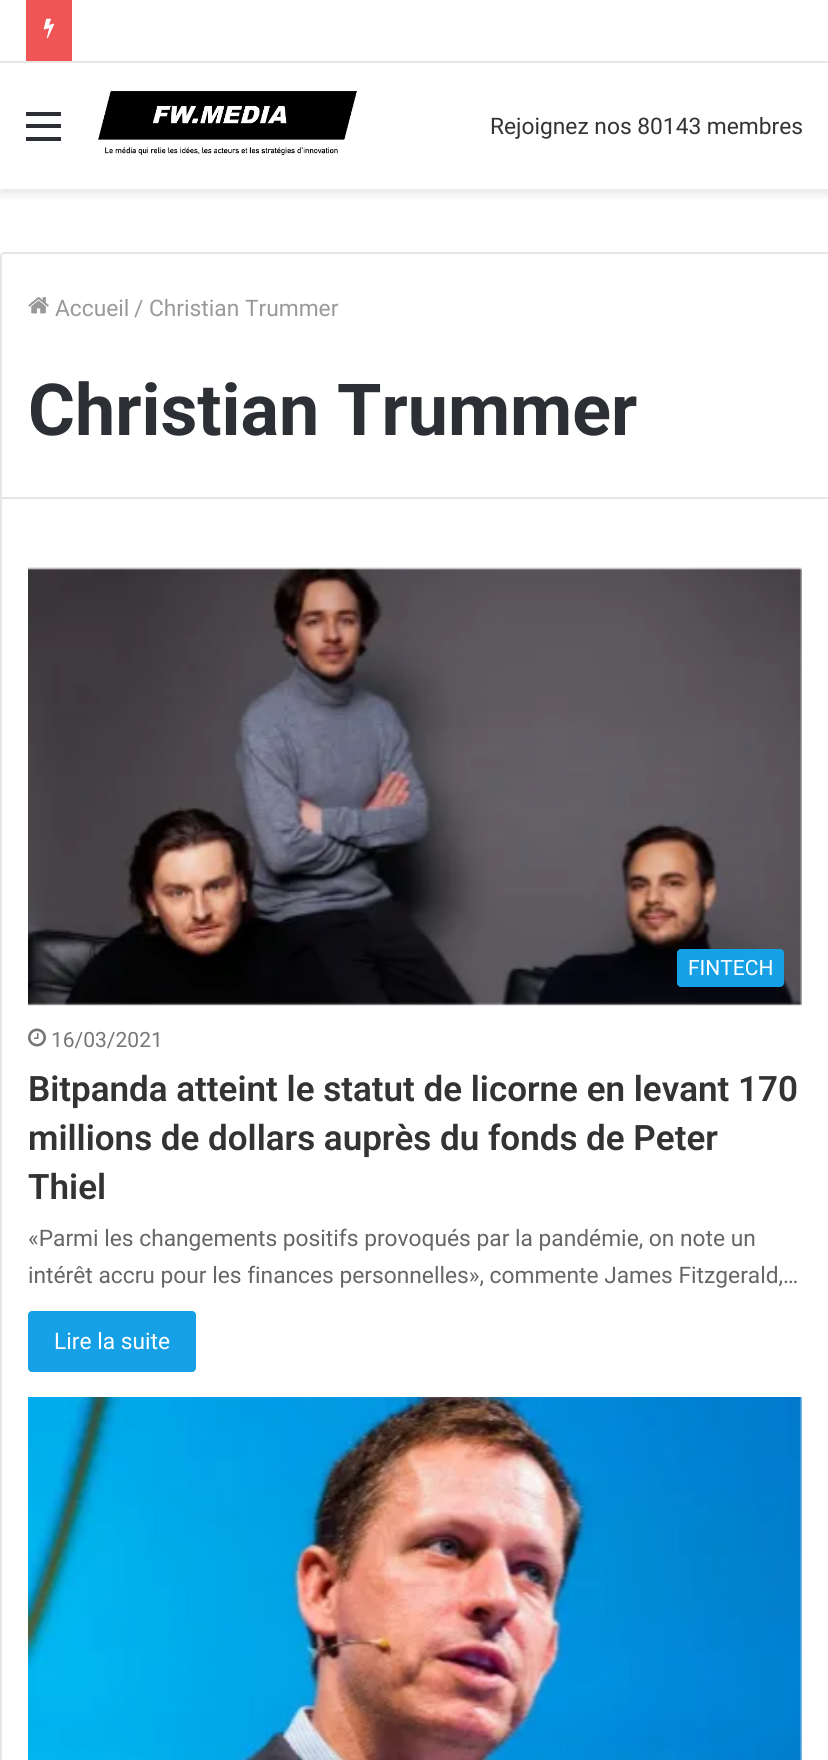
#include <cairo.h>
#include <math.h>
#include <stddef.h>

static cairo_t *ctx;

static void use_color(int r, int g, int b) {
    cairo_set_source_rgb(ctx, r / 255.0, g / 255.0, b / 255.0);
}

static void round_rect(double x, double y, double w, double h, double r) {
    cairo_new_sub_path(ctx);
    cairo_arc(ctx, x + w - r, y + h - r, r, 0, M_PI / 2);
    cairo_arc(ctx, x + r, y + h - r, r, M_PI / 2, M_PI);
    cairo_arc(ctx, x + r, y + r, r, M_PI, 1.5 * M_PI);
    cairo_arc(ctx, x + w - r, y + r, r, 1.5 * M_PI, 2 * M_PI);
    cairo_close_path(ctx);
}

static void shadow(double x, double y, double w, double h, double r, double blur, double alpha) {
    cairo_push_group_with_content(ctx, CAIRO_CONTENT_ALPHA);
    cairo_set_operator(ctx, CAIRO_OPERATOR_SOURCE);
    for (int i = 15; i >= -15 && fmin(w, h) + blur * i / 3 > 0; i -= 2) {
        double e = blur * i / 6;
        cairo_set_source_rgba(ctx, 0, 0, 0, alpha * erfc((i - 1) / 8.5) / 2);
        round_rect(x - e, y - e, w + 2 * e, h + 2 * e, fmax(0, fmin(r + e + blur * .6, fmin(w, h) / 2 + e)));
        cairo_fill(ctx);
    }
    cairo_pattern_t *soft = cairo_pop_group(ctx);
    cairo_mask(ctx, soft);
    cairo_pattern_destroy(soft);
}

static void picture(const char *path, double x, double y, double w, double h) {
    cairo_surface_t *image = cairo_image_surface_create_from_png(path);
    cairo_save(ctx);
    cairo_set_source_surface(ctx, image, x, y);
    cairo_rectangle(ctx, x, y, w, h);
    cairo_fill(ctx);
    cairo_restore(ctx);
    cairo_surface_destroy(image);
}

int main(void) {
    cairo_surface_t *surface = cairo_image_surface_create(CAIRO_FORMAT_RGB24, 828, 1760);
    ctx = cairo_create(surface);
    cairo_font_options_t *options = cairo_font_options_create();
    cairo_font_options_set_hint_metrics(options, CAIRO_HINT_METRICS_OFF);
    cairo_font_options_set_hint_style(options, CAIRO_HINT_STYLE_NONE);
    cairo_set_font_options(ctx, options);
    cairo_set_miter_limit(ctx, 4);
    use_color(255, 255, 255);
    cairo_paint(ctx);
    cairo_save(ctx);
    cairo_rectangle(ctx, 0, 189, 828, 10);
    cairo_clip(ctx);
    use_color(0, 0, 0);
    shadow(0, 68, 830, 126, 0, 6, 0.1);
    cairo_restore(ctx);
    use_color(255, 255, 255);
    cairo_rectangle(ctx, 10, 60, 810, 1);
    cairo_fill(ctx);
    use_color(230, 230, 230);
    cairo_rectangle(ctx, 0, 61, 828, 2);
    cairo_fill(ctx);
    use_color(240, 85, 85);
    cairo_rectangle(ctx, 26, 0, 46, 61);
    cairo_fill(ctx);
    picture("img1.png", 43, 18, 12, 21);
    use_color(44, 47, 52);
    cairo_rectangle(ctx, 26, 124, 35, 4);
    cairo_fill(ctx);
    cairo_rectangle(ctx, 26, 112, 35, 4);
    cairo_fill(ctx);
    cairo_rectangle(ctx, 26, 137, 35, 4);
    cairo_fill(ctx);
    picture("img2.png", 98, 91, 259, 64);
    cairo_select_font_face(ctx, "Roboto", CAIRO_FONT_SLANT_NORMAL, CAIRO_FONT_WEIGHT_NORMAL);
    cairo_set_font_size(ctx, 22.75);
    use_color(51, 51, 51);
    cairo_move_to(ctx, 490, 134);
    cairo_show_text(ctx, "Rejoignez nos 80143 membres");
    cairo_new_path(ctx);
    cairo_move_to(ctx, 4, 253);
    cairo_line_to(ctx, 826, 253);
    cairo_curve_to(ctx, 827.5, 253, 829, 254.5, 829, 256);
    cairo_line_to(ctx, 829, 498);
    cairo_line_to(ctx, 1, 498);
    cairo_line_to(ctx, 1, 256);
    cairo_curve_to(ctx, 1, 254.5, 2.5, 253, 4, 253);
    cairo_close_path(ctx);
    use_color(230, 230, 230);
    cairo_stroke(ctx);
    picture("img3.png", 28, 297, 21, 17);
    use_color(153, 153, 153);
    cairo_move_to(ctx, 55, 316);
    cairo_show_text(ctx, "Accueil");
    cairo_move_to(ctx, 134, 316);
    cairo_show_text(ctx, "/");
    cairo_move_to(ctx, 149, 316);
    cairo_show_text(ctx, "Christian Trummer");
    cairo_select_font_face(ctx, "Roboto", CAIRO_FONT_SLANT_NORMAL, CAIRO_FONT_WEIGHT_BOLD);
    cairo_set_font_size(ctx, 71.75);
    use_color(44, 47, 52);
    cairo_move_to(ctx, 28, 435);
    cairo_show_text(ctx, "Christian Trummer");
    use_color(230, 230, 230);
    cairo_rectangle(ctx, 0, 499, 2, 1261);
    cairo_fill(ctx);
    picture("img4.png", 28, 567, 774, 439);
    use_color(22, 161, 231);
    round_rect(677, 949, 107, 38, 4);
    cairo_fill(ctx);
    cairo_select_font_face(ctx, "Roboto", CAIRO_FONT_SLANT_NORMAL, CAIRO_FONT_WEIGHT_NORMAL);
    cairo_set_font_size(ctx, 21);
    use_color(255, 255, 255);
    cairo_move_to(ctx, 688, 975);
    cairo_show_text(ctx, "FINTECH");
    picture("img5.png", 28, 1028, 18, 19);
    use_color(118, 118, 118);
    cairo_move_to(ctx, 51, 1047);
    cairo_show_text(ctx, "16/03/2021");
    cairo_select_font_face(ctx, "Roboto SemiBold", CAIRO_FONT_SLANT_NORMAL, CAIRO_FONT_WEIGHT_NORMAL);
    cairo_set_font_size(ctx, 35);
    use_color(51, 51, 51);
    cairo_move_to(ctx, 28, 1101);
    cairo_show_text(ctx, "Bitpanda atteint le statut de licorne en levant 170");
    cairo_move_to(ctx, 28, 1150);
    cairo_show_text(ctx, "millions de dollars auprès du fonds de Peter");
    cairo_move_to(ctx, 28, 1199);
    cairo_show_text(ctx, "Thiel");
    cairo_select_font_face(ctx, "Roboto", CAIRO_FONT_SLANT_NORMAL, CAIRO_FONT_WEIGHT_NORMAL);
    cairo_set_font_size(ctx, 22.75);
    use_color(102, 102, 102);
    cairo_move_to(ctx, 28, 1246);
    cairo_show_text(ctx, "«Parmi les changements positifs provoqués par la pandémie, on note un");
    cairo_move_to(ctx, 28, 1283);
    cairo_show_text(ctx, "intérêt accru pour les finances personnelles», commente James Fitzgerald,…");
    use_color(22, 161, 231);
    round_rect(28, 1311, 168, 61, 4);
    cairo_fill(ctx);
    use_color(255, 255, 255);
    cairo_move_to(ctx, 54, 1349);
    cairo_show_text(ctx, "Lire la suite");
    picture("img6.png", 28, 1397, 774, 363);
    cairo_surface_write_to_png(surface, "result.png");
    cairo_font_options_destroy(options);
    cairo_destroy(ctx);
    cairo_surface_destroy(surface);
    return 0;
}
